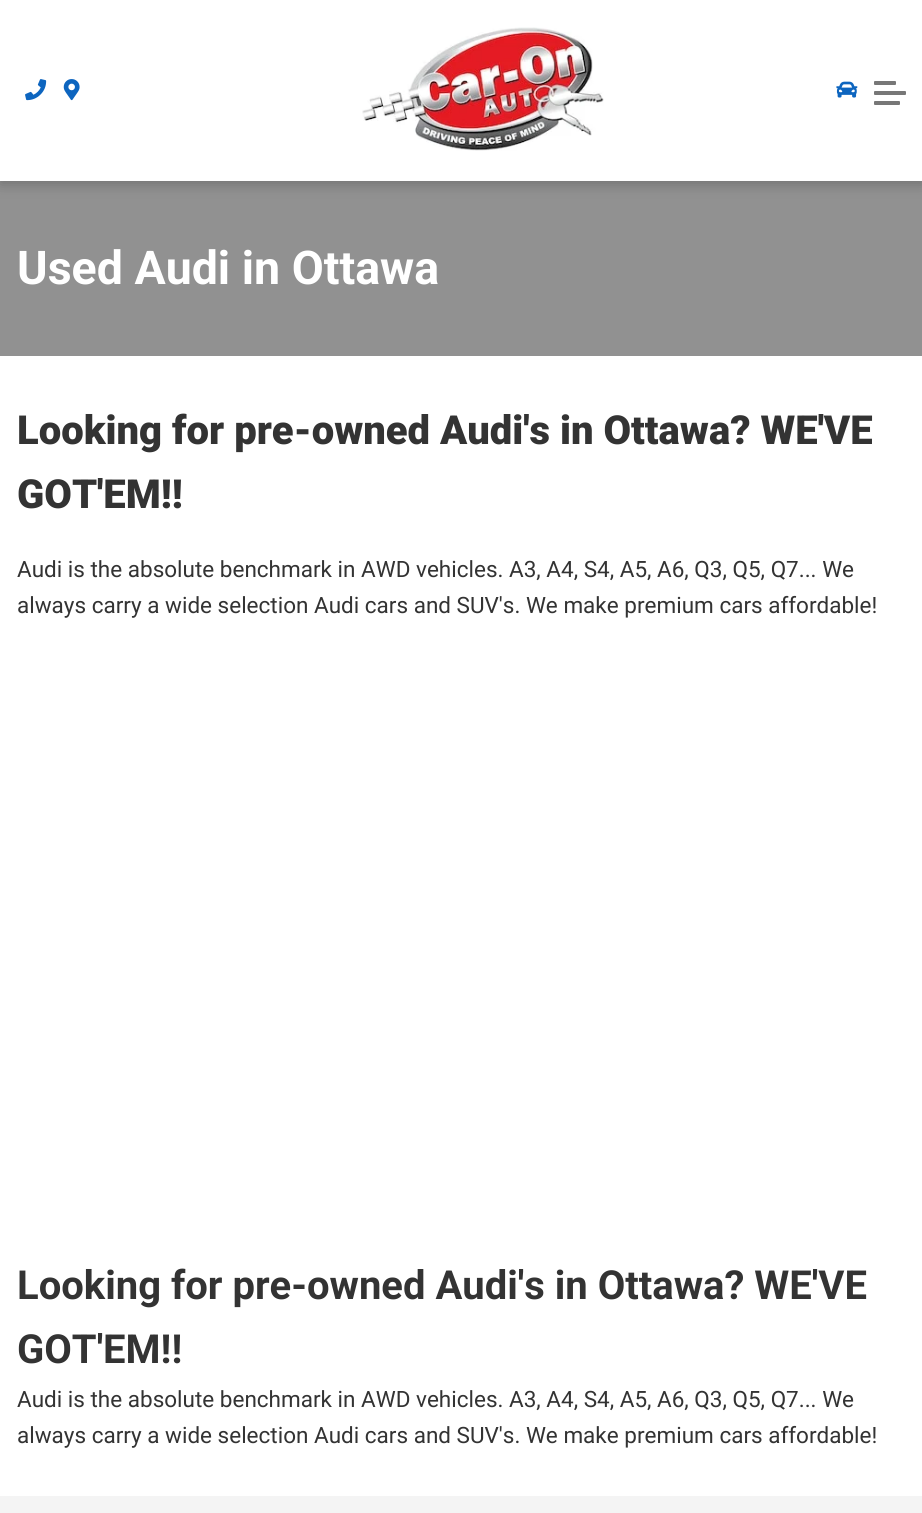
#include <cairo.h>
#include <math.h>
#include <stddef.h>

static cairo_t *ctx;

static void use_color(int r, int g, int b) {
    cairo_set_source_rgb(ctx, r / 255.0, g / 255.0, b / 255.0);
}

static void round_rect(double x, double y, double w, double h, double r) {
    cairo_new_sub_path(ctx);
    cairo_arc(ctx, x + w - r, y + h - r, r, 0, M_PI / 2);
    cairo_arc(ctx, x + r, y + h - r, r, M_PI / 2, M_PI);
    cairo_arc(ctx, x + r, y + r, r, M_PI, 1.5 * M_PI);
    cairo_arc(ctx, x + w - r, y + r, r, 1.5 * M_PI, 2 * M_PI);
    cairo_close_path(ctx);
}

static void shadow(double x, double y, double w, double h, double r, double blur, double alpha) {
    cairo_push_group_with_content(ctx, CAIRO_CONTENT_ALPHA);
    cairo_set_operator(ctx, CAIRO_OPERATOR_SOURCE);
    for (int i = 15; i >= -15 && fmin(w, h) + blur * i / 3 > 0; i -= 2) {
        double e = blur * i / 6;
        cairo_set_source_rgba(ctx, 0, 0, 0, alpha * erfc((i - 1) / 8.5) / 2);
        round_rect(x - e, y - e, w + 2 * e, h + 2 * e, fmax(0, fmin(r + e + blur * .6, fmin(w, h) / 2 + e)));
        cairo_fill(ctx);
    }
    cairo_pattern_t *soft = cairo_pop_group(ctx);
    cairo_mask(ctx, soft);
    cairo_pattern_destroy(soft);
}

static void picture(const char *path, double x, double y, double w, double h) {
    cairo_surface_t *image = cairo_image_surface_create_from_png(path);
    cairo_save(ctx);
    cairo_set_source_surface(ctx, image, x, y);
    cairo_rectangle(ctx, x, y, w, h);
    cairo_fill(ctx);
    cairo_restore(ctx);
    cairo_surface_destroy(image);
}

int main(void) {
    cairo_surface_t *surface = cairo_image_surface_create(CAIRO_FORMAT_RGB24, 922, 1513);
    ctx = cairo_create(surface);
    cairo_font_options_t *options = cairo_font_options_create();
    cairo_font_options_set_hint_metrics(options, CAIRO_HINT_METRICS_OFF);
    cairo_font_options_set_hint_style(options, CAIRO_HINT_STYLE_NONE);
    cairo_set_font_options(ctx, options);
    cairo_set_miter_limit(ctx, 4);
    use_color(255, 255, 255);
    cairo_paint(ctx);
    use_color(145, 145, 145);
    cairo_rectangle(ctx, 0, 181, 922, 175);
    cairo_fill(ctx);
    use_color(0, 0, 0);
    shadow(0, 4, 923, 181, 0, 6.5, 0.2);
    use_color(255, 255, 255);
    cairo_rectangle(ctx, 0, 0, 922, 181);
    cairo_fill(ctx);
    picture("img1.png", 25, 79, 22, 22);
    picture("img2.png", 63, 79, 17, 22);
    picture("img3.png", 362, 27, 242, 124);
    picture("img4.png", 836, 81, 22, 17);
    use_color(119, 119, 119);
    round_rect(874, 91, 32, 4, 1);
    cairo_fill(ctx);
    round_rect(874, 81, 22, 4, 1);
    cairo_fill(ctx);
    round_rect(874, 101, 26, 4, 1);
    cairo_fill(ctx);
    cairo_select_font_face(ctx, "Roboto", CAIRO_FONT_SLANT_NORMAL, CAIRO_FONT_WEIGHT_BOLD);
    cairo_set_font_size(ctx, 46.5);
    use_color(255, 255, 255);
    cairo_move_to(ctx, 17, 284);
    cairo_show_text(ctx, "Used Audi in Ottawa");
    cairo_select_font_face(ctx, "Roboto Black", CAIRO_FONT_SLANT_NORMAL, CAIRO_FONT_WEIGHT_NORMAL);
    cairo_set_font_size(ctx, 40);
    use_color(51, 51, 51);
    cairo_move_to(ctx, 17, 444);
    cairo_show_text(ctx, "Looking for pre-owned Audi's in Ottawa? WE'VE");
    cairo_move_to(ctx, 17, 508);
    cairo_show_text(ctx, "GOT'EM!!");
    cairo_select_font_face(ctx, "Roboto", CAIRO_FONT_SLANT_NORMAL, CAIRO_FONT_WEIGHT_NORMAL);
    cairo_set_font_size(ctx, 22.5);
    cairo_move_to(ctx, 17, 577);
    cairo_show_text(ctx, "Audi is the absolute benchmark in AWD vehicles. A3, A4, S4, A5, A6, Q3, Q5, Q7... We");
    cairo_move_to(ctx, 17, 613);
    cairo_show_text(ctx, "always carry a wide selection Audi cars and SUV's. We make premium cars affordable!");
    cairo_select_font_face(ctx, "Roboto", CAIRO_FONT_SLANT_NORMAL, CAIRO_FONT_WEIGHT_BOLD);
    cairo_set_font_size(ctx, 40);
    cairo_move_to(ctx, 17, 1299);
    cairo_show_text(ctx, "Looking for pre-owned Audi's in Ottawa? WE'VE");
    cairo_move_to(ctx, 17, 1363);
    cairo_show_text(ctx, "GOT'EM!!");
    cairo_select_font_face(ctx, "Roboto", CAIRO_FONT_SLANT_NORMAL, CAIRO_FONT_WEIGHT_NORMAL);
    cairo_set_font_size(ctx, 22.5);
    cairo_move_to(ctx, 17, 1407);
    cairo_show_text(ctx, "Audi is the absolute benchmark in AWD vehicles. A3, A4, S4, A5, A6, Q3, Q5, Q7... We");
    cairo_move_to(ctx, 17, 1443);
    cairo_show_text(ctx, "always carry a wide selection Audi cars and SUV's. We make premium cars affordable!");
    use_color(244, 244, 244);
    cairo_rectangle(ctx, 0, 1496, 922, 17);
    cairo_fill(ctx);
    cairo_surface_write_to_png(surface, "result.png");
    cairo_font_options_destroy(options);
    cairo_destroy(ctx);
    cairo_surface_destroy(surface);
    return 0;
}
